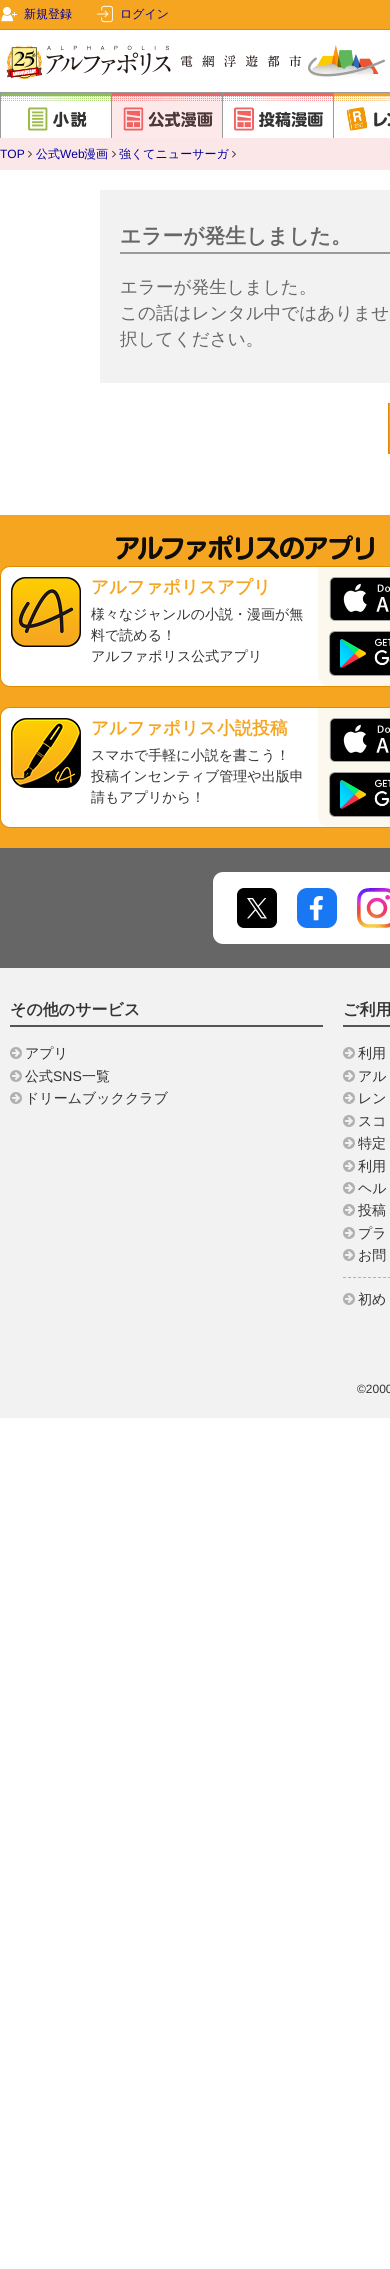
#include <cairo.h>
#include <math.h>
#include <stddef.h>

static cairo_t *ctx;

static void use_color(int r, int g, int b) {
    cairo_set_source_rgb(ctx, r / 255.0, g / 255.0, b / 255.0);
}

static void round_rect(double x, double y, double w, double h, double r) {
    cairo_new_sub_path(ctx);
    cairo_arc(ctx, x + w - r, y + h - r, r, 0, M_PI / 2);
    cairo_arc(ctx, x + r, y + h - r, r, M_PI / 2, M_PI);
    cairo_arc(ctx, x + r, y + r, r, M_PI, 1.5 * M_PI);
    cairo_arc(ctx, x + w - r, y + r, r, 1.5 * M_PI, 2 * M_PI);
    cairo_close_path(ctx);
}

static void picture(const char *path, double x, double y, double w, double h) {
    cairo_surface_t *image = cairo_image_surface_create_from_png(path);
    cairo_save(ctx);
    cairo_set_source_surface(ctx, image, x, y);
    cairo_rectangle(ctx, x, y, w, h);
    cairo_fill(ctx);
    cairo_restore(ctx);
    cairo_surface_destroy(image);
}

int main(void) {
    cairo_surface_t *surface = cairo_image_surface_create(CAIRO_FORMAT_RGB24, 390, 2269);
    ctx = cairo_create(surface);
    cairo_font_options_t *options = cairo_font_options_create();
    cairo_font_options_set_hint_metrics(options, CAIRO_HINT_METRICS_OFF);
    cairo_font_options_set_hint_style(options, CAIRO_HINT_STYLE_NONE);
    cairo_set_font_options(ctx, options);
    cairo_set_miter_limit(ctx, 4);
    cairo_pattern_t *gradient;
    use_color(255, 255, 255);
    cairo_paint(ctx);
    use_color(245, 165, 32);
    cairo_rectangle(ctx, 0, 0, 390, 29);
    cairo_fill(ctx);
    use_color(198, 144, 54);
    cairo_rectangle(ctx, 0, 29, 390, 1);
    cairo_fill(ctx);
    picture("img1.png", 1, 7, 16, 15);
    cairo_select_font_face(ctx, "WenQuanYi Zen Hei Medium", CAIRO_FONT_SLANT_NORMAL, CAIRO_FONT_WEIGHT_NORMAL);
    cairo_set_font_size(ctx, 12);
    use_color(0, 0, 153);
    cairo_move_to(ctx, 24, 18);
    cairo_show_text(ctx, "新規登録");
    picture("img2.png", 97, 5, 16, 18);
    cairo_move_to(ctx, 120, 18);
    cairo_show_text(ctx, "ログイン");
    picture("img3.png", 6, 45, 379, 34);
    use_color(153, 153, 153);
    cairo_rectangle(ctx, 0, 92, 390, 1);
    cairo_fill(ctx);
    cairo_rectangle(ctx, 0, 93, 1, 45);
    cairo_fill(ctx);
    picture("img4.png", 1, 93, 110, 44);
    cairo_rectangle(ctx, 111, 93, 1, 45);
    cairo_fill(ctx);
    picture("img5.png", 112, 93, 110, 44);
    cairo_set_source_rgba(ctx, 0.945, 0.388, 0.388, 0.14);
    cairo_rectangle(ctx, 111, 93, 111, 45);
    cairo_fill(ctx);
    use_color(153, 153, 153);
    cairo_rectangle(ctx, 222, 93, 1, 45);
    cairo_fill(ctx);
    picture("img6.png", 223, 93, 110, 44);
    cairo_rectangle(ctx, 333, 93, 1, 45);
    cairo_fill(ctx);
    picture("img7.png", 334, 93, 56, 44);
    use_color(251, 231, 232);
    cairo_rectangle(ctx, 0, 138, 390, 32);
    cairo_fill(ctx);
    cairo_select_font_face(ctx, "Liberation Sans", CAIRO_FONT_SLANT_NORMAL, CAIRO_FONT_WEIGHT_NORMAL);
    use_color(0, 0, 153);
    cairo_move_to(ctx, 0, 158);
    cairo_show_text(ctx, "TOP");
    picture("img8.png", 28, 150, 4, 8);
    cairo_select_font_face(ctx, "WenQuanYi Zen Hei Medium", CAIRO_FONT_SLANT_NORMAL, CAIRO_FONT_WEIGHT_NORMAL);
    cairo_move_to(ctx, 36, 158);
    cairo_show_text(ctx, "公式");
    cairo_select_font_face(ctx, "Liberation Sans", CAIRO_FONT_SLANT_NORMAL, CAIRO_FONT_WEIGHT_NORMAL);
    cairo_move_to(ctx, 60, 158);
    cairo_show_text(ctx, "Web");
    cairo_select_font_face(ctx, "WenQuanYi Zen Hei Medium", CAIRO_FONT_SLANT_NORMAL, CAIRO_FONT_WEIGHT_NORMAL);
    cairo_move_to(ctx, 84, 158);
    cairo_show_text(ctx, "漫画");
    picture("img8.png", 112, 150, 4, 8);
    cairo_move_to(ctx, 119, 158);
    cairo_show_text(ctx, "強くてニューサーガ");
    picture("img8.png", 232, 150, 4, 8);
    use_color(242, 242, 242);
    cairo_rectangle(ctx, 100, 190, 290, 193);
    cairo_fill(ctx);
    use_color(153, 153, 153);
    cairo_rectangle(ctx, 120, 252, 270, 2);
    cairo_fill(ctx);
    cairo_select_font_face(ctx, "WenQuanYi Zen Hei", CAIRO_FONT_SLANT_NORMAL, CAIRO_FONT_WEIGHT_BOLD);
    cairo_set_font_size(ctx, 20.75);
    use_color(102, 102, 102);
    cairo_move_to(ctx, 120, 243);
    cairo_show_text(ctx, "エラーが発生しました。");
    cairo_select_font_face(ctx, "WenQuanYi Zen Hei Medium", CAIRO_FONT_SLANT_NORMAL, CAIRO_FONT_WEIGHT_NORMAL);
    cairo_set_font_size(ctx, 17.6);
    cairo_move_to(ctx, 120, 293);
    cairo_show_text(ctx, "エラーが発生しました。");
    cairo_move_to(ctx, 120, 319);
    cairo_show_text(ctx, "この話はレンタル中ではありませ");
    cairo_move_to(ctx, 120, 345);
    cairo_show_text(ctx, "択してください。");
    gradient = cairo_pattern_create_linear(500, 404, 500, 453);
    cairo_pattern_add_color_stop_rgba(gradient, 0, 0.961, 0.647, 0.125, 1);
    cairo_pattern_add_color_stop_rgba(gradient, 1, 0.945, 0.592, 0.012, 1);
    cairo_set_source(ctx, gradient);
    cairo_pattern_destroy(gradient);
    cairo_rectangle(ctx, 389, 404, 1, 49);
    cairo_fill(ctx);
    cairo_rectangle(ctx, 388.5, 403.5, 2, 50);
    use_color(222, 139, 0);
    cairo_set_line_width(ctx, 1);
    cairo_stroke(ctx);
    use_color(245, 165, 32);
    cairo_rectangle(ctx, 0, 515, 390, 333);
    cairo_fill(ctx);
    picture("img9.png", 116, 535, 258, 25);
    use_color(255, 255, 255);
    round_rect(0.5, 566.5, 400, 120, 9.5);
    cairo_fill_preserve(ctx);
    use_color(222, 139, 0);
    cairo_stroke(ctx);
    picture("img10.png", 11, 577, 70, 70);
    cairo_select_font_face(ctx, "WenQuanYi Zen Hei", CAIRO_FONT_SLANT_NORMAL, CAIRO_FONT_WEIGHT_BOLD);
    use_color(245, 165, 32);
    cairo_move_to(ctx, 91, 593);
    cairo_show_text(ctx, "アルファポリスアプリ");
    cairo_select_font_face(ctx, "WenQuanYi Zen Hei Medium", CAIRO_FONT_SLANT_NORMAL, CAIRO_FONT_WEIGHT_NORMAL);
    cairo_set_font_size(ctx, 14);
    use_color(51, 51, 51);
    cairo_move_to(ctx, 91, 619);
    cairo_show_text(ctx, "様々なジャンルの小説・漫画が無");
    cairo_move_to(ctx, 91, 640);
    cairo_show_text(ctx, "料で読める！");
    cairo_move_to(ctx, 91, 661);
    cairo_show_text(ctx, "アルファポリス公式アプリ");
    use_color(253, 248, 238);
    cairo_new_path(ctx);
    cairo_move_to(ctx, 318, 567);
    cairo_line_to(ctx, 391, 567);
    cairo_curve_to(ctx, 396, 567, 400, 571, 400, 576);
    cairo_line_to(ctx, 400, 676);
    cairo_curve_to(ctx, 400, 681.5, 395.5, 686, 390, 686);
    cairo_line_to(ctx, 328, 686);
    cairo_curve_to(ctx, 322.5, 686, 318, 681.5, 318, 676);
    cairo_close_path(ctx);
    cairo_fill(ctx);
    picture("img11.png", 329, 577, 61, 44);
    picture("img12.png", 329, 631, 61, 45);
    use_color(255, 255, 255);
    round_rect(0.5, 707.5, 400, 120, 9.5);
    cairo_fill_preserve(ctx);
    use_color(222, 139, 0);
    cairo_stroke(ctx);
    picture("img13.png", 11, 718, 70, 70);
    cairo_select_font_face(ctx, "WenQuanYi Zen Hei", CAIRO_FONT_SLANT_NORMAL, CAIRO_FONT_WEIGHT_BOLD);
    cairo_set_font_size(ctx, 17.6);
    use_color(245, 165, 32);
    cairo_move_to(ctx, 91, 734);
    cairo_show_text(ctx, "アルファポリス小説投稿");
    cairo_select_font_face(ctx, "WenQuanYi Zen Hei Medium", CAIRO_FONT_SLANT_NORMAL, CAIRO_FONT_WEIGHT_NORMAL);
    cairo_set_font_size(ctx, 14);
    use_color(51, 51, 51);
    cairo_move_to(ctx, 91, 760);
    cairo_show_text(ctx, "スマホで手軽に小説を書こう！");
    cairo_move_to(ctx, 91, 781);
    cairo_show_text(ctx, "投稿インセンティブ管理や出版申");
    cairo_move_to(ctx, 91, 802);
    cairo_show_text(ctx, "請もアプリから！");
    use_color(253, 248, 238);
    cairo_new_path(ctx);
    cairo_move_to(ctx, 318, 708);
    cairo_line_to(ctx, 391, 708);
    cairo_curve_to(ctx, 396, 708, 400, 712, 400, 717);
    cairo_line_to(ctx, 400, 817);
    cairo_curve_to(ctx, 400, 822.5, 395.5, 827, 390, 827);
    cairo_line_to(ctx, 328, 827);
    cairo_curve_to(ctx, 322.5, 827, 318, 822.5, 318, 817);
    cairo_close_path(ctx);
    cairo_fill(ctx);
    picture("img11.png", 329, 718, 61, 44);
    picture("img12.png", 329, 772, 61, 45);
    use_color(102, 102, 102);
    cairo_rectangle(ctx, 0, 848, 390, 120);
    cairo_fill(ctx);
    use_color(255, 255, 255);
    round_rect(213, 872, 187, 72, 10);
    cairo_fill(ctx);
    picture("img14.png", 237, 888, 40, 40);
    picture("img15.png", 297, 888, 40, 40);
    picture("img16.png", 357, 888, 33, 40);
    use_color(242, 242, 242);
    cairo_rectangle(ctx, 0, 968, 390, 450);
    cairo_fill(ctx);
    use_color(85, 85, 85);
    cairo_rectangle(ctx, 10, 1025, 313, 2);
    cairo_fill(ctx);
    cairo_select_font_face(ctx, "WenQuanYi Zen Hei", CAIRO_FONT_SLANT_NORMAL, CAIRO_FONT_WEIGHT_BOLD);
    cairo_set_font_size(ctx, 16);
    use_color(51, 51, 51);
    cairo_move_to(ctx, 10, 1015);
    cairo_show_text(ctx, "その他のサービス");
    picture("img17.png", 10, 1047, 12, 12);
    cairo_select_font_face(ctx, "WenQuanYi Zen Hei Medium", CAIRO_FONT_SLANT_NORMAL, CAIRO_FONT_WEIGHT_NORMAL);
    cairo_set_font_size(ctx, 14);
    cairo_move_to(ctx, 25, 1058);
    cairo_show_text(ctx, "アプリ");
    picture("img17.png", 10, 1070, 12, 12);
    cairo_move_to(ctx, 25, 1081);
    cairo_show_text(ctx, "公式");
    cairo_select_font_face(ctx, "Liberation Sans", CAIRO_FONT_SLANT_NORMAL, CAIRO_FONT_WEIGHT_NORMAL);
    cairo_move_to(ctx, 53, 1081);
    cairo_show_text(ctx, "SNS");
    cairo_select_font_face(ctx, "WenQuanYi Zen Hei Medium", CAIRO_FONT_SLANT_NORMAL, CAIRO_FONT_WEIGHT_NORMAL);
    cairo_move_to(ctx, 82, 1081);
    cairo_show_text(ctx, "一覧");
    picture("img17.png", 10, 1092, 12, 12);
    cairo_move_to(ctx, 25, 1103);
    cairo_show_text(ctx, "ドリームブッククラブ");
    use_color(85, 85, 85);
    cairo_rectangle(ctx, 343, 1025, 47, 2);
    cairo_fill(ctx);
    cairo_select_font_face(ctx, "WenQuanYi Zen Hei", CAIRO_FONT_SLANT_NORMAL, CAIRO_FONT_WEIGHT_BOLD);
    cairo_set_font_size(ctx, 16);
    use_color(51, 51, 51);
    cairo_move_to(ctx, 343, 1015);
    cairo_show_text(ctx, "ご利用");
    picture("img17.png", 343, 1047, 12, 12);
    cairo_select_font_face(ctx, "WenQuanYi Zen Hei Medium", CAIRO_FONT_SLANT_NORMAL, CAIRO_FONT_WEIGHT_NORMAL);
    cairo_set_font_size(ctx, 14);
    cairo_move_to(ctx, 358, 1058);
    cairo_show_text(ctx, "利用");
    picture("img17.png", 343, 1070, 12, 12);
    cairo_move_to(ctx, 358, 1081);
    cairo_show_text(ctx, "アル");
    picture("img17.png", 343, 1092, 12, 12);
    cairo_move_to(ctx, 358, 1103);
    cairo_show_text(ctx, "レン");
    picture("img17.png", 343, 1115, 12, 12);
    cairo_move_to(ctx, 358, 1126);
    cairo_show_text(ctx, "スコ");
    picture("img17.png", 343, 1137, 12, 12);
    cairo_move_to(ctx, 358, 1148);
    cairo_show_text(ctx, "特定");
    picture("img17.png", 343, 1160, 12, 12);
    cairo_move_to(ctx, 358, 1171);
    cairo_show_text(ctx, "利用");
    picture("img17.png", 343, 1182, 12, 12);
    cairo_move_to(ctx, 358, 1193);
    cairo_show_text(ctx, "ヘル");
    picture("img17.png", 343, 1204, 12, 12);
    cairo_move_to(ctx, 358, 1215);
    cairo_show_text(ctx, "投稿");
    picture("img17.png", 343, 1227, 12, 12);
    cairo_move_to(ctx, 358, 1238);
    cairo_show_text(ctx, "プラ");
    picture("img17.png", 343, 1249, 12, 12);
    cairo_move_to(ctx, 358, 1260);
    cairo_show_text(ctx, "お問");
    cairo_new_path(ctx);
    cairo_move_to(ctx, 343, 1277.5);
    cairo_line_to(ctx, 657, 1277.5);
    use_color(176, 176, 176);
    cairo_set_dash(ctx, (double[]){3, 2.02}, 2, 0);
    cairo_stroke(ctx);
    picture("img17.png", 343, 1293, 12, 12);
    use_color(51, 51, 51);
    cairo_move_to(ctx, 358, 1304);
    cairo_show_text(ctx, "初め");
    cairo_select_font_face(ctx, "Liberation Sans", CAIRO_FONT_SLANT_NORMAL, CAIRO_FONT_WEIGHT_NORMAL);
    cairo_set_font_size(ctx, 12);
    cairo_move_to(ctx, 357, 1393);
    cairo_show_text(ctx, "©2000");
    cairo_surface_write_to_png(surface, "result.png");
    cairo_font_options_destroy(options);
    cairo_destroy(ctx);
    cairo_surface_destroy(surface);
    return 0;
}
